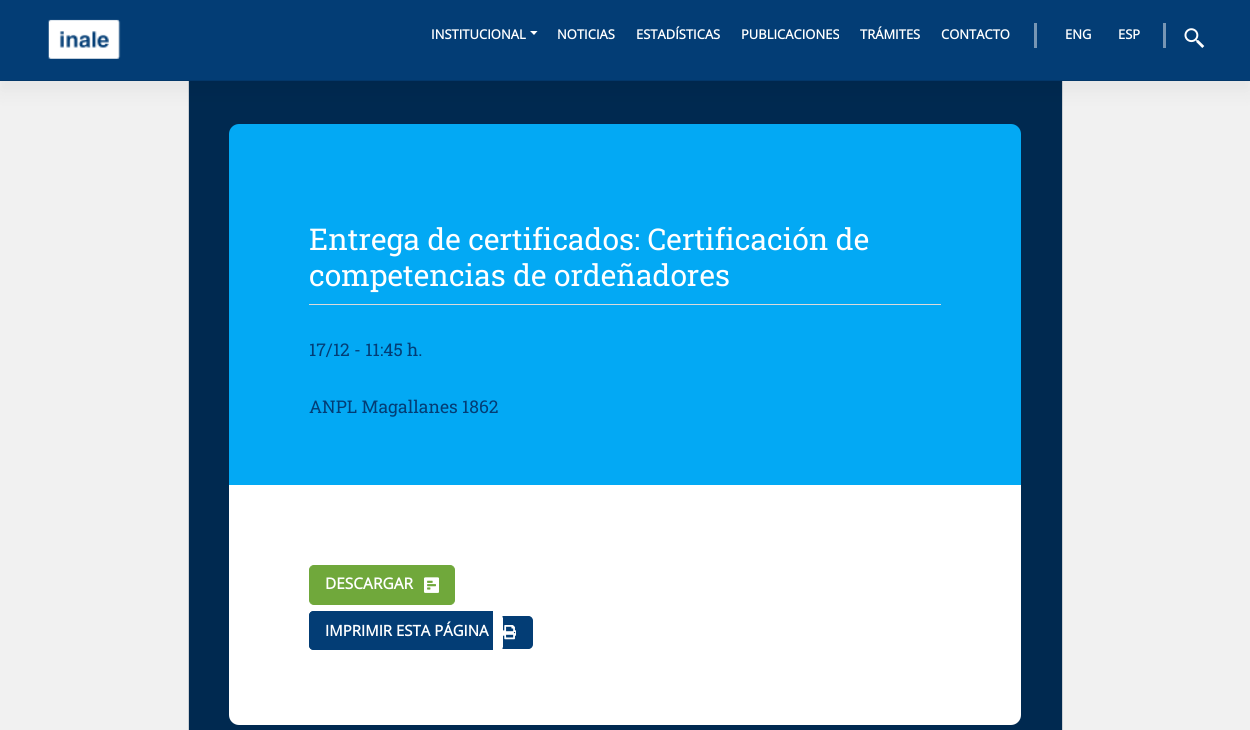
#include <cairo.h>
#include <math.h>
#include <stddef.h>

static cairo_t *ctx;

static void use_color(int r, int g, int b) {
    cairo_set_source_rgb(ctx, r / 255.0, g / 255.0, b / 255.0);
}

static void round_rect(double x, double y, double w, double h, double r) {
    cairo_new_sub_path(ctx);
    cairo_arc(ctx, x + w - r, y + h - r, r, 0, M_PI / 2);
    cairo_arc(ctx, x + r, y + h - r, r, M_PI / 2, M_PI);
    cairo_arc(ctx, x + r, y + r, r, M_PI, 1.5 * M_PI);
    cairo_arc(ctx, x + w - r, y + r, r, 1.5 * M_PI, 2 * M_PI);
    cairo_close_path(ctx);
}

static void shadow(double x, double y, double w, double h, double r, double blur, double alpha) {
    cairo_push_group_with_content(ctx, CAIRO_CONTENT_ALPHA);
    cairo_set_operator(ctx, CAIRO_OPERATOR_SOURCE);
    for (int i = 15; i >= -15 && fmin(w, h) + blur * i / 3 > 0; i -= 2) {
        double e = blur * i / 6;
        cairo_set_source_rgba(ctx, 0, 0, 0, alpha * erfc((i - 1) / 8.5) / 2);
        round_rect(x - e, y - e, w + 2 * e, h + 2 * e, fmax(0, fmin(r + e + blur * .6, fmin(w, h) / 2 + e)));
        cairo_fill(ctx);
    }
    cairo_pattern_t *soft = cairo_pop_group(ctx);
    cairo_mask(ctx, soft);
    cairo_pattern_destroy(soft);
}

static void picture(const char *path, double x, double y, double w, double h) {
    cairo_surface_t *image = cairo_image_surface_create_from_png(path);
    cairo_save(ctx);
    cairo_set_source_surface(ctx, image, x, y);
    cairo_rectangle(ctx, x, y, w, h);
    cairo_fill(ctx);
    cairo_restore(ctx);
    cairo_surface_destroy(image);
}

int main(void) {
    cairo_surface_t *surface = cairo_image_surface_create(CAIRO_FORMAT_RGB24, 1250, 730);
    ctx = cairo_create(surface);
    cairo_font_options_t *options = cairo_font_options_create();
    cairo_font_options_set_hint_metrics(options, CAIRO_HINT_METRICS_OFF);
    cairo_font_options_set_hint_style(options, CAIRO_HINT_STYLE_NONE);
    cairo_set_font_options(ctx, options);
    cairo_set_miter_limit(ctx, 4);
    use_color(241, 241, 241);
    cairo_paint(ctx);
    use_color(0, 41, 80);
    cairo_rectangle(ctx, 189, 81, 873, 649);
    cairo_fill(ctx);
    cairo_rectangle(ctx, 188.5, 63.5, 874, 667);
    use_color(204, 208, 212);
    cairo_set_line_width(ctx, 1);
    cairo_stroke(ctx);
    use_color(0, 0, 0);
    shadow(0, 10, 1250, 81, 0, 10, 0.05);
    use_color(3, 61, 117);
    cairo_rectangle(ctx, 0, 0, 1250, 80);
    cairo_fill(ctx);
    use_color(3, 55, 105);
    cairo_rectangle(ctx, 0, 80, 1250, 1);
    cairo_fill(ctx);
    picture("img1.png", 48, 19, 73, 40);
    cairo_select_font_face(ctx, "Open Sans", CAIRO_FONT_SLANT_NORMAL, CAIRO_FONT_WEIGHT_BOLD);
    cairo_set_font_size(ctx, 13);
    use_color(255, 255, 255);
    cairo_move_to(ctx, 431, 39);
    cairo_show_text(ctx, "INSTITUCIONAL");
    cairo_new_path(ctx);
    cairo_move_to(ctx, 530, 31);
    cairo_line_to(ctx, 537.5, 31);
    cairo_line_to(ctx, 534, 35);
    cairo_close_path(ctx);
    cairo_fill(ctx);
    cairo_move_to(ctx, 557, 39);
    cairo_show_text(ctx, "NOTICIAS");
    cairo_move_to(ctx, 636, 39);
    cairo_show_text(ctx, "ESTADÍSTICAS");
    cairo_move_to(ctx, 741, 39);
    cairo_show_text(ctx, "PUBLICACIONES");
    cairo_move_to(ctx, 860, 39);
    cairo_show_text(ctx, "TRÁMITES");
    cairo_move_to(ctx, 941, 39);
    cairo_show_text(ctx, "CONTACTO");
    use_color(119, 150, 180);
    cairo_rectangle(ctx, 1034, 23, 3, 25);
    cairo_fill(ctx);
    use_color(255, 255, 255);
    cairo_move_to(ctx, 1065, 39);
    cairo_show_text(ctx, "ENG");
    cairo_move_to(ctx, 1118, 39);
    cairo_show_text(ctx, "ESP");
    use_color(119, 150, 180);
    cairo_rectangle(ctx, 1163, 23, 3, 25);
    cairo_fill(ctx);
    picture("img2.png", 1184, 28, 21, 20);
    use_color(3, 169, 244);
    cairo_new_path(ctx);
    cairo_move_to(ctx, 239, 124);
    cairo_line_to(ctx, 1011, 124);
    cairo_curve_to(ctx, 1016.5, 124, 1021, 128.5, 1021, 134);
    cairo_line_to(ctx, 1021, 485);
    cairo_line_to(ctx, 229, 485);
    cairo_line_to(ctx, 229, 134);
    cairo_curve_to(ctx, 229, 128.5, 233.5, 124, 239, 124);
    cairo_close_path(ctx);
    cairo_fill(ctx);
    use_color(218, 218, 218);
    cairo_rectangle(ctx, 309, 304, 632, 1);
    cairo_fill(ctx);
    cairo_select_font_face(ctx, "Roboto Slab", CAIRO_FONT_SLANT_NORMAL, CAIRO_FONT_WEIGHT_NORMAL);
    cairo_set_font_size(ctx, 30);
    use_color(255, 255, 255);
    cairo_move_to(ctx, 309, 250);
    cairo_show_text(ctx, "Entrega de certificados: Certificación de");
    cairo_move_to(ctx, 309, 286);
    cairo_show_text(ctx, "competencias de ordeñadores");
    cairo_set_font_size(ctx, 17.5);
    use_color(3, 61, 117);
    cairo_move_to(ctx, 309, 356);
    cairo_show_text(ctx, "17/12 - 11:45 h.");
    cairo_move_to(ctx, 309, 413);
    cairo_show_text(ctx, "ANPL Magallanes 1862");
    use_color(255, 255, 255);
    cairo_new_path(ctx);
    cairo_move_to(ctx, 229, 485);
    cairo_line_to(ctx, 1021, 485);
    cairo_line_to(ctx, 1021, 715);
    cairo_curve_to(ctx, 1021, 720.5, 1016.5, 725, 1011, 725);
    cairo_line_to(ctx, 239, 725);
    cairo_curve_to(ctx, 233.5, 725, 229, 720.5, 229, 715);
    cairo_close_path(ctx);
    cairo_fill(ctx);
    use_color(112, 168, 59);
    round_rect(309.5, 565.5, 145, 39, 4.5);
    cairo_fill_preserve(ctx);
    cairo_stroke(ctx);
    cairo_select_font_face(ctx, "Open Sans", CAIRO_FONT_SLANT_NORMAL, CAIRO_FONT_WEIGHT_BOLD);
    cairo_set_font_size(ctx, 15.5);
    use_color(255, 255, 255);
    cairo_move_to(ctx, 325, 589);
    cairo_show_text(ctx, "DESCARGAR");
    picture("img3.png", 424, 577, 15, 16);
    use_color(3, 61, 117);
    cairo_new_path(ctx);
    cairo_move_to(ctx, 314, 611);
    cairo_line_to(ctx, 493, 611);
    cairo_line_to(ctx, 493, 650);
    cairo_line_to(ctx, 314, 650);
    cairo_curve_to(ctx, 311, 650, 309, 648, 309, 645);
    cairo_line_to(ctx, 309, 616);
    cairo_curve_to(ctx, 309, 613, 311, 611, 314, 611);
    cairo_close_path(ctx);
    cairo_fill(ctx);
    cairo_set_fill_rule(ctx, CAIRO_FILL_RULE_EVEN_ODD);
    cairo_new_path(ctx);
    cairo_move_to(ctx, 314, 611);
    cairo_line_to(ctx, 492, 611);
    cairo_line_to(ctx, 492, 650);
    cairo_line_to(ctx, 314, 650);
    cairo_curve_to(ctx, 311, 650, 309, 648, 309, 645);
    cairo_line_to(ctx, 309, 616);
    cairo_curve_to(ctx, 309, 613, 311, 611, 314, 611);
    cairo_close_path(ctx);
    cairo_move_to(ctx, 314, 612);
    cairo_line_to(ctx, 492, 612);
    cairo_line_to(ctx, 492, 649);
    cairo_line_to(ctx, 314, 649);
    cairo_curve_to(ctx, 312, 649, 310, 647, 310, 645);
    cairo_line_to(ctx, 310, 616);
    cairo_curve_to(ctx, 310, 614, 312, 612, 314, 612);
    cairo_close_path(ctx);
    cairo_fill(ctx);
    cairo_set_font_size(ctx, 15);
    use_color(255, 255, 255);
    cairo_move_to(ctx, 325, 636);
    cairo_show_text(ctx, "IMPRIMIR ESTA PÁGINA");
    use_color(3, 61, 117);
    cairo_new_path(ctx);
    cairo_move_to(ctx, 503, 616);
    cairo_line_to(ctx, 528, 616);
    cairo_curve_to(ctx, 531, 616, 533, 618, 533, 621);
    cairo_line_to(ctx, 533, 644);
    cairo_curve_to(ctx, 533, 647, 531, 649, 528, 649);
    cairo_line_to(ctx, 503, 649);
    cairo_close_path(ctx);
    cairo_fill(ctx);
    cairo_new_path(ctx);
    cairo_move_to(ctx, 502.5, 616);
    cairo_line_to(ctx, 527.5, 616);
    cairo_curve_to(ctx, 530.5, 616, 532.5, 618.5, 532.5, 621);
    cairo_line_to(ctx, 532.5, 644);
    cairo_curve_to(ctx, 532.5, 646.5, 530.5, 649, 527.5, 649);
    cairo_line_to(ctx, 502.5, 649);
    cairo_close_path(ctx);
    cairo_move_to(ctx, 502.5, 617.5);
    cairo_line_to(ctx, 527.5, 617.5);
    cairo_curve_to(ctx, 529.5, 617.5, 531, 619, 531, 621);
    cairo_line_to(ctx, 531, 644);
    cairo_curve_to(ctx, 531, 646, 529.5, 647.5, 527.5, 647.5);
    cairo_line_to(ctx, 502.5, 647.5);
    cairo_close_path(ctx);
    cairo_fill(ctx);
    picture("img4.png", 503, 625, 13, 15);
    cairo_surface_write_to_png(surface, "result.png");
    cairo_font_options_destroy(options);
    cairo_destroy(ctx);
    cairo_surface_destroy(surface);
    return 0;
}
